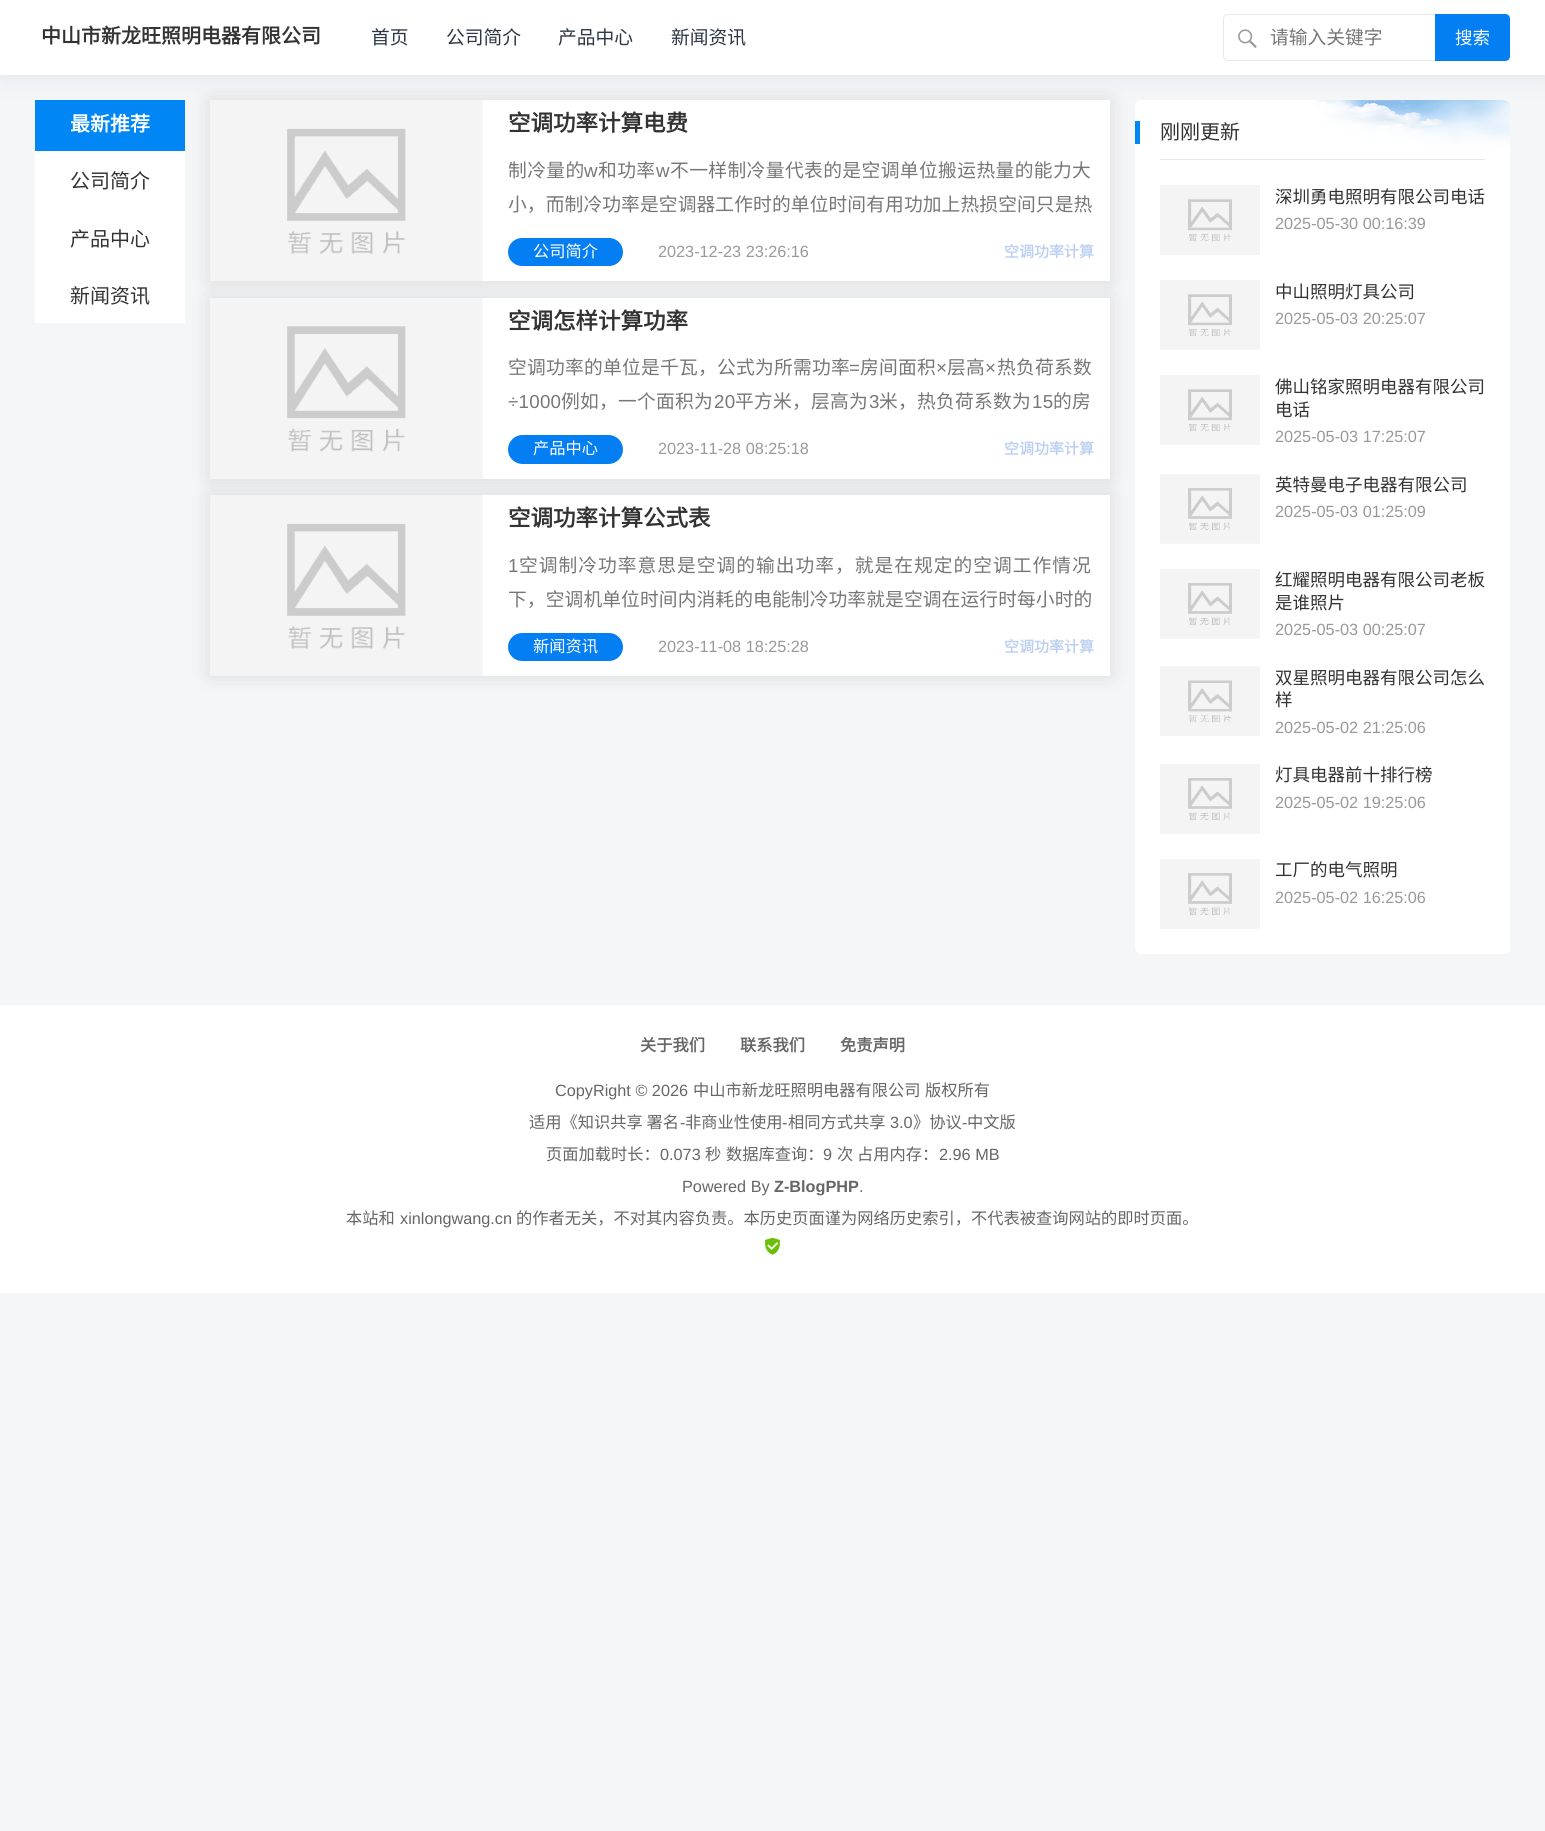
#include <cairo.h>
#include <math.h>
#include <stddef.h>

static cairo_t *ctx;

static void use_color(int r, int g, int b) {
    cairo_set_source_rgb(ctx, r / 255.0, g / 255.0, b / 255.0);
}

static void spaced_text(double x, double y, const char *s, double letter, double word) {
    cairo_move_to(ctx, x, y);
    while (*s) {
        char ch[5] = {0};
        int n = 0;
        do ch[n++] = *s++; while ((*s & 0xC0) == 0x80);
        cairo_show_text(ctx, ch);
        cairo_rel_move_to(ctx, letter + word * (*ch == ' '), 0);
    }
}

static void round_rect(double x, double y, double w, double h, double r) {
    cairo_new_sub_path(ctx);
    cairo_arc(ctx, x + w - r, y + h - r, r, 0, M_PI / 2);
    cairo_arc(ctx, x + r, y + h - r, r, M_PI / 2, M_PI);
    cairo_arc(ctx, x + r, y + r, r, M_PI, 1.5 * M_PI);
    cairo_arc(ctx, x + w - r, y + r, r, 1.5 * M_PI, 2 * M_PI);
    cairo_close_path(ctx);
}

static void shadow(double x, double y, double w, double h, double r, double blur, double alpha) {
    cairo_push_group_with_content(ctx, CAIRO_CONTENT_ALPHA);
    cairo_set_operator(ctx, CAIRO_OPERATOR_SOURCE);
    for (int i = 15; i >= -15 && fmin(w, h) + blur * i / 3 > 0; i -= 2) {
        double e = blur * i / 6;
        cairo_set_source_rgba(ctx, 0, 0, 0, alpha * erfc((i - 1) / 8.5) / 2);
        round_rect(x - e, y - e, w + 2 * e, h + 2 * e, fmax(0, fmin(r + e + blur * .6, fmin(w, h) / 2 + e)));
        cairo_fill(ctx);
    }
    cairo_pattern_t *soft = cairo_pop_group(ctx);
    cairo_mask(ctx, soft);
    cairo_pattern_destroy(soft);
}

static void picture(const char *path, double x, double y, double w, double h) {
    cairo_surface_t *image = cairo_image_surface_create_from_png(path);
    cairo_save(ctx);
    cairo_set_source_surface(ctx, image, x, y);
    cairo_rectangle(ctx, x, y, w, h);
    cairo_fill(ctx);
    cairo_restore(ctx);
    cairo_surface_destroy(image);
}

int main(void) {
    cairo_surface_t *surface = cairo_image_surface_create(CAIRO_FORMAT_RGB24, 1545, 1831);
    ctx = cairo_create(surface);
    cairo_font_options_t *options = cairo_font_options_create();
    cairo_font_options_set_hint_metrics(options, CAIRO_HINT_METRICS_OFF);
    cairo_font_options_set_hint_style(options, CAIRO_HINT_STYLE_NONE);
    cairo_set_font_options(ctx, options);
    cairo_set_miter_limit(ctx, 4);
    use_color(245, 246, 247);
    cairo_paint(ctx);
    use_color(72, 125, 178);
    shadow(0, 6, 1545, 75, 0, 9.5, 0.1);
    use_color(255, 255, 255);
    cairo_rectangle(ctx, 0, 0, 1545, 75);
    cairo_fill(ctx);
    cairo_select_font_face(ctx, "Noto Sans CJK SC", CAIRO_FONT_SLANT_NORMAL, CAIRO_FONT_WEIGHT_BOLD);
    cairo_set_font_size(ctx, 20);
    use_color(51, 51, 51);
    cairo_move_to(ctx, 41, 43);
    cairo_show_text(ctx, "中山市新龙旺照明电器有限公司");
    cairo_select_font_face(ctx, "Noto Sans CJK SC", CAIRO_FONT_SLANT_NORMAL, CAIRO_FONT_WEIGHT_NORMAL);
    cairo_set_font_size(ctx, 18.75);
    use_color(44, 54, 68);
    cairo_move_to(ctx, 371, 44);
    cairo_show_text(ctx, "首页");
    cairo_move_to(ctx, 446, 44);
    cairo_show_text(ctx, "公司简介");
    cairo_move_to(ctx, 558, 44);
    cairo_show_text(ctx, "产品中心");
    cairo_move_to(ctx, 671, 44);
    cairo_show_text(ctx, "新闻资讯");
    round_rect(1223.5, 14.5, 286, 46, 4.5);
    use_color(233, 233, 233);
    cairo_set_line_width(ctx, 1);
    cairo_stroke(ctx);
    picture("img1.png", 1238, 29, 19, 19);
    use_color(119, 119, 119);
    cairo_move_to(ctx, 1270, 44);
    cairo_show_text(ctx, "请输入关键字");
    use_color(3, 126, 243);
    cairo_new_path(ctx);
    cairo_move_to(ctx, 1435, 14);
    cairo_line_to(ctx, 1505, 14);
    cairo_curve_to(ctx, 1508, 14, 1510, 16, 1510, 19);
    cairo_line_to(ctx, 1510, 56);
    cairo_curve_to(ctx, 1510, 59, 1508, 61, 1505, 61);
    cairo_line_to(ctx, 1435, 61);
    cairo_close_path(ctx);
    cairo_fill(ctx);
    cairo_set_font_size(ctx, 17.5);
    use_color(255, 255, 255);
    cairo_move_to(ctx, 1455, 44);
    cairo_show_text(ctx, "搜索");
    cairo_rectangle(ctx, 35, 151, 150, 172);
    cairo_fill(ctx);
    use_color(0, 135, 245);
    cairo_rectangle(ctx, 35, 100, 150, 51);
    cairo_fill(ctx);
    cairo_select_font_face(ctx, "Noto Sans CJK SC", CAIRO_FONT_SLANT_NORMAL, CAIRO_FONT_WEIGHT_BOLD);
    cairo_set_font_size(ctx, 20);
    use_color(255, 255, 255);
    cairo_move_to(ctx, 70, 131);
    cairo_show_text(ctx, "最新推荐");
    cairo_select_font_face(ctx, "Noto Sans CJK SC", CAIRO_FONT_SLANT_NORMAL, CAIRO_FONT_WEIGHT_NORMAL);
    use_color(51, 51, 51);
    cairo_move_to(ctx, 70, 188);
    cairo_show_text(ctx, "公司简介");
    cairo_move_to(ctx, 70, 246);
    cairo_show_text(ctx, "产品中心");
    cairo_move_to(ctx, 70, 303);
    cairo_show_text(ctx, "新闻资讯");
    use_color(50, 50, 50);
    shadow(210, 100, 900, 181, 0, 10, 0.15);
    use_color(255, 255, 255);
    cairo_rectangle(ctx, 482, 100, 628, 181);
    cairo_fill(ctx);
    use_color(50, 50, 50);
    shadow(210, 298, 900, 181, 0, 10, 0.15);
    picture("img2.png", 210, 100, 273, 181);
    cairo_select_font_face(ctx, "Noto Sans CJK SC", CAIRO_FONT_SLANT_NORMAL, CAIRO_FONT_WEIGHT_BOLD);
    cairo_set_font_size(ctx, 22.5);
    use_color(51, 51, 51);
    cairo_move_to(ctx, 508, 131);
    cairo_show_text(ctx, "空调功率计算电费");
    cairo_select_font_face(ctx, "Noto Sans CJK SC", CAIRO_FONT_SLANT_NORMAL, CAIRO_FONT_WEIGHT_NORMAL);
    cairo_set_font_size(ctx, 18.75);
    use_color(119, 119, 119);
    spaced_text(508, 177, "制冷量的", 0.4, 0);
    cairo_select_font_face(ctx, "Liberation Sans", CAIRO_FONT_SLANT_NORMAL, CAIRO_FONT_WEIGHT_NORMAL);
    spaced_text(584, 177, "w", 0.4, 0);
    cairo_select_font_face(ctx, "Noto Sans CJK SC", CAIRO_FONT_SLANT_NORMAL, CAIRO_FONT_WEIGHT_NORMAL);
    spaced_text(598, 177, "和功率", 0.4, 0);
    cairo_select_font_face(ctx, "Liberation Sans", CAIRO_FONT_SLANT_NORMAL, CAIRO_FONT_WEIGHT_NORMAL);
    spaced_text(656, 177, "w", 0.4, 0);
    cairo_select_font_face(ctx, "Noto Sans CJK SC", CAIRO_FONT_SLANT_NORMAL, CAIRO_FONT_WEIGHT_NORMAL);
    spaced_text(670, 177, "不一样制冷量代表的是空调单位搬运热量的能力大", 0.4, 0);
    spaced_text(508, 211, "小，而制冷功率是空调器工作时的单位时间有用功加上热损空间只是热", 0.1, 0);
    use_color(3, 126, 243);
    round_rect(509.5, 239.5, 112, 25, 12.5);
    cairo_fill_preserve(ctx);
    cairo_set_line_width(ctx, 3);
    cairo_stroke(ctx);
    cairo_set_font_size(ctx, 16.25);
    use_color(255, 255, 255);
    cairo_move_to(ctx, 533, 257);
    cairo_show_text(ctx, "公司简介");
    cairo_select_font_face(ctx, "Liberation Sans", CAIRO_FONT_SLANT_NORMAL, CAIRO_FONT_WEIGHT_NORMAL);
    use_color(153, 153, 153);
    cairo_move_to(ctx, 658, 257);
    cairo_show_text(ctx, "2023-12-23 23:26:16");
    cairo_select_font_face(ctx, "Noto Sans CJK SC", CAIRO_FONT_SLANT_NORMAL, CAIRO_FONT_WEIGHT_BOLD);
    cairo_set_font_size(ctx, 15);
    use_color(188, 208, 241);
    cairo_move_to(ctx, 1004, 257);
    cairo_show_text(ctx, "空调功率计算");
    use_color(255, 255, 255);
    cairo_rectangle(ctx, 210, 298, 900, 181);
    cairo_fill(ctx);
    use_color(50, 50, 50);
    shadow(210, 495, 900, 181, 0, 10, 0.15);
    picture("img3.png", 210, 298, 273, 181);
    cairo_set_font_size(ctx, 22.5);
    use_color(51, 51, 51);
    cairo_move_to(ctx, 508, 329);
    cairo_show_text(ctx, "空调怎样计算功率");
    cairo_select_font_face(ctx, "Noto Sans CJK SC", CAIRO_FONT_SLANT_NORMAL, CAIRO_FONT_WEIGHT_NORMAL);
    cairo_set_font_size(ctx, 18.75);
    use_color(119, 119, 119);
    spaced_text(508, 374, "空调功率的单位是千瓦，公式为所需功率", 0.25, 0);
    cairo_select_font_face(ctx, "Liberation Sans", CAIRO_FONT_SLANT_NORMAL, CAIRO_FONT_WEIGHT_NORMAL);
    spaced_text(849, 374, "=", 0.25, 0);
    cairo_select_font_face(ctx, "Noto Sans CJK SC", CAIRO_FONT_SLANT_NORMAL, CAIRO_FONT_WEIGHT_NORMAL);
    spaced_text(860, 374, "房间面积", 0.25, 0);
    cairo_select_font_face(ctx, "Liberation Sans", CAIRO_FONT_SLANT_NORMAL, CAIRO_FONT_WEIGHT_NORMAL);
    spaced_text(936, 374, "×", 0.25, 0);
    cairo_select_font_face(ctx, "Noto Sans CJK SC", CAIRO_FONT_SLANT_NORMAL, CAIRO_FONT_WEIGHT_NORMAL);
    spaced_text(947, 374, "层高", 0.25, 0);
    cairo_select_font_face(ctx, "Liberation Sans", CAIRO_FONT_SLANT_NORMAL, CAIRO_FONT_WEIGHT_NORMAL);
    spaced_text(985, 374, "×", 0.25, 0);
    cairo_select_font_face(ctx, "Noto Sans CJK SC", CAIRO_FONT_SLANT_NORMAL, CAIRO_FONT_WEIGHT_NORMAL);
    spaced_text(997, 374, "热负荷系数", 0.25, 0);
    cairo_select_font_face(ctx, "Liberation Sans", CAIRO_FONT_SLANT_NORMAL, CAIRO_FONT_WEIGHT_NORMAL);
    spaced_text(508, 408, "÷1000", 0.25, 0);
    cairo_select_font_face(ctx, "Noto Sans CJK SC", CAIRO_FONT_SLANT_NORMAL, CAIRO_FONT_WEIGHT_NORMAL);
    spaced_text(561, 408, "例如，一个面积为", 0.25, 0);
    cairo_select_font_face(ctx, "Liberation Sans", CAIRO_FONT_SLANT_NORMAL, CAIRO_FONT_WEIGHT_NORMAL);
    spaced_text(714, 408, "20", 0.25, 0);
    cairo_select_font_face(ctx, "Noto Sans CJK SC", CAIRO_FONT_SLANT_NORMAL, CAIRO_FONT_WEIGHT_NORMAL);
    spaced_text(735, 408, "平方米，层高为", 0.25, 0);
    cairo_select_font_face(ctx, "Liberation Sans", CAIRO_FONT_SLANT_NORMAL, CAIRO_FONT_WEIGHT_NORMAL);
    spaced_text(869, 408, "3", 0.25, 0);
    cairo_select_font_face(ctx, "Noto Sans CJK SC", CAIRO_FONT_SLANT_NORMAL, CAIRO_FONT_WEIGHT_NORMAL);
    spaced_text(879, 408, "米，热负荷系数为", 0.25, 0);
    cairo_select_font_face(ctx, "Liberation Sans", CAIRO_FONT_SLANT_NORMAL, CAIRO_FONT_WEIGHT_NORMAL);
    spaced_text(1032, 408, "15", 0.25, 0);
    cairo_select_font_face(ctx, "Noto Sans CJK SC", CAIRO_FONT_SLANT_NORMAL, CAIRO_FONT_WEIGHT_NORMAL);
    spaced_text(1053, 408, "的房", 0.25, 0);
    use_color(3, 126, 243);
    round_rect(509.5, 436.5, 112, 26, 13);
    cairo_fill_preserve(ctx);
    cairo_stroke(ctx);
    cairo_set_font_size(ctx, 16.25);
    use_color(255, 255, 255);
    cairo_move_to(ctx, 533, 454);
    cairo_show_text(ctx, "产品中心");
    cairo_select_font_face(ctx, "Liberation Sans", CAIRO_FONT_SLANT_NORMAL, CAIRO_FONT_WEIGHT_NORMAL);
    use_color(153, 153, 153);
    cairo_move_to(ctx, 658, 454);
    cairo_show_text(ctx, "2023-11-28 08:25:18");
    cairo_select_font_face(ctx, "Noto Sans CJK SC", CAIRO_FONT_SLANT_NORMAL, CAIRO_FONT_WEIGHT_BOLD);
    cairo_set_font_size(ctx, 15);
    use_color(188, 208, 241);
    cairo_move_to(ctx, 1004, 454);
    cairo_show_text(ctx, "空调功率计算");
    use_color(255, 255, 255);
    cairo_rectangle(ctx, 482, 495, 628, 181);
    cairo_fill(ctx);
    picture("img4.png", 210, 495, 273, 181);
    cairo_set_font_size(ctx, 22.5);
    use_color(51, 51, 51);
    cairo_move_to(ctx, 508, 526);
    cairo_show_text(ctx, "空调功率计算公式表");
    cairo_select_font_face(ctx, "Liberation Sans", CAIRO_FONT_SLANT_NORMAL, CAIRO_FONT_WEIGHT_NORMAL);
    cairo_set_font_size(ctx, 18.75);
    use_color(119, 119, 119);
    spaced_text(508, 572, "1", 1, 0);
    cairo_select_font_face(ctx, "Noto Sans CJK SC", CAIRO_FONT_SLANT_NORMAL, CAIRO_FONT_WEIGHT_NORMAL);
    spaced_text(519, 572, "空调制冷功率意思是空调的输出功率，就是在规定的空调工作情况", 1, 0);
    spaced_text(508, 606, "下，空调机单位时间内消耗的电能制冷功率就是空调在运行时每小时的", 0.1, 0);
    use_color(3, 126, 243);
    round_rect(509.5, 634.5, 112, 25, 12.5);
    cairo_fill_preserve(ctx);
    cairo_stroke(ctx);
    cairo_set_font_size(ctx, 16.25);
    use_color(255, 255, 255);
    cairo_move_to(ctx, 533, 652);
    cairo_show_text(ctx, "新闻资讯");
    cairo_select_font_face(ctx, "Liberation Sans", CAIRO_FONT_SLANT_NORMAL, CAIRO_FONT_WEIGHT_NORMAL);
    use_color(153, 153, 153);
    cairo_move_to(ctx, 658, 652);
    cairo_show_text(ctx, "2023-11-08 18:25:28");
    cairo_select_font_face(ctx, "Noto Sans CJK SC", CAIRO_FONT_SLANT_NORMAL, CAIRO_FONT_WEIGHT_BOLD);
    cairo_set_font_size(ctx, 15);
    use_color(188, 208, 241);
    cairo_move_to(ctx, 1004, 652);
    cairo_show_text(ctx, "空调功率计算");
    use_color(255, 255, 255);
    round_rect(1135, 100, 375, 854, 6);
    cairo_fill(ctx);
    picture("img5.png", 1313, 100, 197, 46);
    use_color(233, 233, 233);
    cairo_rectangle(ctx, 1160, 159, 325, 1);
    cairo_fill(ctx);
    use_color(0, 135, 245);
    cairo_rectangle(ctx, 1135, 121, 5, 23);
    cairo_fill(ctx);
    cairo_select_font_face(ctx, "Noto Sans CJK SC", CAIRO_FONT_SLANT_NORMAL, CAIRO_FONT_WEIGHT_NORMAL);
    cairo_set_font_size(ctx, 20);
    use_color(51, 51, 51);
    cairo_move_to(ctx, 1160, 139);
    cairo_show_text(ctx, "刚刚更新");
    picture("img6.png", 1160, 185, 100, 70);
    cairo_set_font_size(ctx, 17.5);
    cairo_move_to(ctx, 1275, 203);
    cairo_show_text(ctx, "深圳勇电照明有限公司电话");
    cairo_select_font_face(ctx, "Liberation Sans", CAIRO_FONT_SLANT_NORMAL, CAIRO_FONT_WEIGHT_NORMAL);
    cairo_set_font_size(ctx, 16.25);
    use_color(153, 153, 153);
    cairo_move_to(ctx, 1275, 229);
    cairo_show_text(ctx, "2025-05-30 00:16:39");
    picture("img6.png", 1160, 280, 100, 70);
    cairo_select_font_face(ctx, "Noto Sans CJK SC", CAIRO_FONT_SLANT_NORMAL, CAIRO_FONT_WEIGHT_NORMAL);
    cairo_set_font_size(ctx, 17.5);
    use_color(51, 51, 51);
    cairo_move_to(ctx, 1275, 298);
    cairo_show_text(ctx, "中山照明灯具公司");
    cairo_select_font_face(ctx, "Liberation Sans", CAIRO_FONT_SLANT_NORMAL, CAIRO_FONT_WEIGHT_NORMAL);
    cairo_set_font_size(ctx, 16.25);
    use_color(153, 153, 153);
    cairo_move_to(ctx, 1275, 324);
    cairo_show_text(ctx, "2025-05-03 20:25:07");
    picture("img7.png", 1160, 375, 100, 70);
    cairo_select_font_face(ctx, "Noto Sans CJK SC", CAIRO_FONT_SLANT_NORMAL, CAIRO_FONT_WEIGHT_NORMAL);
    cairo_set_font_size(ctx, 17.5);
    use_color(51, 51, 51);
    cairo_move_to(ctx, 1275, 393);
    cairo_show_text(ctx, "佛山铭家照明电器有限公司");
    cairo_move_to(ctx, 1275, 416);
    cairo_show_text(ctx, "电话");
    cairo_select_font_face(ctx, "Liberation Sans", CAIRO_FONT_SLANT_NORMAL, CAIRO_FONT_WEIGHT_NORMAL);
    cairo_set_font_size(ctx, 16.25);
    use_color(153, 153, 153);
    cairo_move_to(ctx, 1275, 442);
    cairo_show_text(ctx, "2025-05-03 17:25:07");
    picture("img8.png", 1160, 474, 100, 70);
    cairo_select_font_face(ctx, "Noto Sans CJK SC", CAIRO_FONT_SLANT_NORMAL, CAIRO_FONT_WEIGHT_NORMAL);
    cairo_set_font_size(ctx, 17.5);
    use_color(51, 51, 51);
    cairo_move_to(ctx, 1275, 491);
    cairo_show_text(ctx, "英特曼电子电器有限公司");
    cairo_select_font_face(ctx, "Liberation Sans", CAIRO_FONT_SLANT_NORMAL, CAIRO_FONT_WEIGHT_NORMAL);
    cairo_set_font_size(ctx, 16.25);
    use_color(153, 153, 153);
    cairo_move_to(ctx, 1275, 517);
    cairo_show_text(ctx, "2025-05-03 01:25:09");
    picture("img8.png", 1160, 569, 100, 70);
    cairo_select_font_face(ctx, "Noto Sans CJK SC", CAIRO_FONT_SLANT_NORMAL, CAIRO_FONT_WEIGHT_NORMAL);
    cairo_set_font_size(ctx, 17.5);
    use_color(51, 51, 51);
    cairo_move_to(ctx, 1275, 586);
    cairo_show_text(ctx, "红耀照明电器有限公司老板");
    cairo_move_to(ctx, 1275, 609);
    cairo_show_text(ctx, "是谁照片");
    cairo_select_font_face(ctx, "Liberation Sans", CAIRO_FONT_SLANT_NORMAL, CAIRO_FONT_WEIGHT_NORMAL);
    cairo_set_font_size(ctx, 16.25);
    use_color(153, 153, 153);
    cairo_move_to(ctx, 1275, 635);
    cairo_show_text(ctx, "2025-05-03 00:25:07");
    picture("img9.png", 1160, 666, 100, 70);
    cairo_select_font_face(ctx, "Noto Sans CJK SC", CAIRO_FONT_SLANT_NORMAL, CAIRO_FONT_WEIGHT_NORMAL);
    cairo_set_font_size(ctx, 17.5);
    use_color(51, 51, 51);
    cairo_move_to(ctx, 1275, 684);
    cairo_show_text(ctx, "双星照明电器有限公司怎么");
    cairo_move_to(ctx, 1275, 706);
    cairo_show_text(ctx, "样");
    cairo_select_font_face(ctx, "Liberation Sans", CAIRO_FONT_SLANT_NORMAL, CAIRO_FONT_WEIGHT_NORMAL);
    cairo_set_font_size(ctx, 16.25);
    use_color(153, 153, 153);
    cairo_move_to(ctx, 1275, 733);
    cairo_show_text(ctx, "2025-05-02 21:25:06");
    picture("img8.png", 1160, 764, 100, 70);
    cairo_select_font_face(ctx, "Noto Sans CJK SC", CAIRO_FONT_SLANT_NORMAL, CAIRO_FONT_WEIGHT_NORMAL);
    cairo_set_font_size(ctx, 17.5);
    use_color(51, 51, 51);
    cairo_move_to(ctx, 1275, 781);
    cairo_show_text(ctx, "灯具电器前十排行榜");
    cairo_select_font_face(ctx, "Liberation Sans", CAIRO_FONT_SLANT_NORMAL, CAIRO_FONT_WEIGHT_NORMAL);
    cairo_set_font_size(ctx, 16.25);
    use_color(153, 153, 153);
    cairo_move_to(ctx, 1275, 808);
    cairo_show_text(ctx, "2025-05-02 19:25:06");
    picture("img8.png", 1160, 859, 100, 70);
    cairo_select_font_face(ctx, "Noto Sans CJK SC", CAIRO_FONT_SLANT_NORMAL, CAIRO_FONT_WEIGHT_NORMAL);
    cairo_set_font_size(ctx, 17.5);
    use_color(51, 51, 51);
    cairo_move_to(ctx, 1275, 876);
    cairo_show_text(ctx, "工厂的电气照明");
    cairo_select_font_face(ctx, "Liberation Sans", CAIRO_FONT_SLANT_NORMAL, CAIRO_FONT_WEIGHT_NORMAL);
    cairo_set_font_size(ctx, 16.25);
    use_color(153, 153, 153);
    cairo_move_to(ctx, 1275, 903);
    cairo_show_text(ctx, "2025-05-02 16:25:06");
    use_color(255, 255, 255);
    cairo_rectangle(ctx, 0, 1005, 1545, 288);
    cairo_fill(ctx);
    use_color(240, 240, 240);
    cairo_rectangle(ctx, 0, 1004, 1545, 1);
    cairo_fill(ctx);
    cairo_select_font_face(ctx, "Noto Sans CJK SC", CAIRO_FONT_SLANT_NORMAL, CAIRO_FONT_WEIGHT_BOLD);
    use_color(102, 102, 102);
    cairo_move_to(ctx, 640, 1051);
    cairo_show_text(ctx, "关于我们");
    cairo_move_to(ctx, 740, 1051);
    cairo_show_text(ctx, "联系我们");
    cairo_move_to(ctx, 840, 1051);
    cairo_show_text(ctx, "免责声明");
    cairo_select_font_face(ctx, "Liberation Sans", CAIRO_FONT_SLANT_NORMAL, CAIRO_FONT_WEIGHT_NORMAL);
    cairo_move_to(ctx, 555, 1096);
    cairo_show_text(ctx, "CopyRight © 2026");
    cairo_select_font_face(ctx, "Noto Sans CJK SC", CAIRO_FONT_SLANT_NORMAL, CAIRO_FONT_WEIGHT_NORMAL);
    cairo_move_to(ctx, 693, 1096);
    cairo_show_text(ctx, "中山市新龙旺照明电器有限公司");
    cairo_move_to(ctx, 925, 1096);
    cairo_show_text(ctx, "版权所有");
    cairo_move_to(ctx, 529, 1128);
    cairo_show_text(ctx, "适用《知识共享 署名");
    cairo_select_font_face(ctx, "Liberation Sans", CAIRO_FONT_SLANT_NORMAL, CAIRO_FONT_WEIGHT_NORMAL);
    cairo_move_to(ctx, 680, 1128);
    cairo_show_text(ctx, "-");
    cairo_select_font_face(ctx, "Noto Sans CJK SC", CAIRO_FONT_SLANT_NORMAL, CAIRO_FONT_WEIGHT_NORMAL);
    cairo_move_to(ctx, 685, 1128);
    cairo_show_text(ctx, "非商业性使用");
    cairo_select_font_face(ctx, "Liberation Sans", CAIRO_FONT_SLANT_NORMAL, CAIRO_FONT_WEIGHT_NORMAL);
    cairo_move_to(ctx, 782, 1128);
    cairo_show_text(ctx, "-");
    cairo_select_font_face(ctx, "Noto Sans CJK SC", CAIRO_FONT_SLANT_NORMAL, CAIRO_FONT_WEIGHT_NORMAL);
    cairo_move_to(ctx, 788, 1128);
    cairo_show_text(ctx, "相同方式共享");
    cairo_select_font_face(ctx, "Liberation Sans", CAIRO_FONT_SLANT_NORMAL, CAIRO_FONT_WEIGHT_NORMAL);
    cairo_move_to(ctx, 890, 1128);
    cairo_show_text(ctx, "3.0");
    cairo_select_font_face(ctx, "Noto Sans CJK SC", CAIRO_FONT_SLANT_NORMAL, CAIRO_FONT_WEIGHT_NORMAL);
    cairo_move_to(ctx, 913, 1128);
    cairo_show_text(ctx, "》协议");
    cairo_select_font_face(ctx, "Liberation Sans", CAIRO_FONT_SLANT_NORMAL, CAIRO_FONT_WEIGHT_NORMAL);
    cairo_move_to(ctx, 962, 1128);
    cairo_show_text(ctx, "-");
    cairo_select_font_face(ctx, "Noto Sans CJK SC", CAIRO_FONT_SLANT_NORMAL, CAIRO_FONT_WEIGHT_NORMAL);
    cairo_move_to(ctx, 967, 1128);
    cairo_show_text(ctx, "中文版");
    cairo_move_to(ctx, 546, 1160);
    cairo_show_text(ctx, "页面加载时长：");
    cairo_select_font_face(ctx, "Liberation Sans", CAIRO_FONT_SLANT_NORMAL, CAIRO_FONT_WEIGHT_NORMAL);
    cairo_move_to(ctx, 660, 1160);
    cairo_show_text(ctx, "0.073");
    cairo_select_font_face(ctx, "Noto Sans CJK SC", CAIRO_FONT_SLANT_NORMAL, CAIRO_FONT_WEIGHT_NORMAL);
    cairo_move_to(ctx, 705, 1160);
    cairo_show_text(ctx, "秒");
    cairo_move_to(ctx, 726, 1160);
    cairo_show_text(ctx, "数据库查询：");
    cairo_select_font_face(ctx, "Liberation Sans", CAIRO_FONT_SLANT_NORMAL, CAIRO_FONT_WEIGHT_NORMAL);
    cairo_move_to(ctx, 823, 1160);
    cairo_show_text(ctx, "9");
    cairo_select_font_face(ctx, "Noto Sans CJK SC", CAIRO_FONT_SLANT_NORMAL, CAIRO_FONT_WEIGHT_NORMAL);
    cairo_move_to(ctx, 837, 1160);
    cairo_show_text(ctx, "次");
    cairo_move_to(ctx, 857, 1160);
    cairo_show_text(ctx, "占用内存：");
    cairo_select_font_face(ctx, "Liberation Sans", CAIRO_FONT_SLANT_NORMAL, CAIRO_FONT_WEIGHT_NORMAL);
    cairo_move_to(ctx, 939, 1160);
    cairo_show_text(ctx, "2.96 MB");
    cairo_move_to(ctx, 682, 1192);
    cairo_show_text(ctx, "Powered By");
    cairo_select_font_face(ctx, "Liberation Sans", CAIRO_FONT_SLANT_NORMAL, CAIRO_FONT_WEIGHT_BOLD);
    cairo_move_to(ctx, 774, 1192);
    cairo_show_text(ctx, "Z-BlogPHP");
    cairo_select_font_face(ctx, "Liberation Sans", CAIRO_FONT_SLANT_NORMAL, CAIRO_FONT_WEIGHT_NORMAL);
    cairo_move_to(ctx, 859, 1192);
    cairo_show_text(ctx, ".");
    cairo_select_font_face(ctx, "Noto Sans CJK SC", CAIRO_FONT_SLANT_NORMAL, CAIRO_FONT_WEIGHT_NORMAL);
    cairo_move_to(ctx, 346, 1224);
    cairo_show_text(ctx, "本站和");
    cairo_select_font_face(ctx, "Liberation Sans", CAIRO_FONT_SLANT_NORMAL, CAIRO_FONT_WEIGHT_NORMAL);
    cairo_move_to(ctx, 400, 1224);
    cairo_show_text(ctx, "xinlongwang.cn");
    cairo_select_font_face(ctx, "Noto Sans CJK SC", CAIRO_FONT_SLANT_NORMAL, CAIRO_FONT_WEIGHT_NORMAL);
    cairo_move_to(ctx, 516, 1224);
    cairo_show_text(ctx, "的作者无关，不对其内容负责。本历史页面谨为网络历史索引，不代表被查询网站的即时页面。");
    picture("img10.png", 765, 1237, 15, 18);
    cairo_surface_write_to_png(surface, "result.png");
    cairo_font_options_destroy(options);
    cairo_destroy(ctx);
    cairo_surface_destroy(surface);
    return 0;
}
